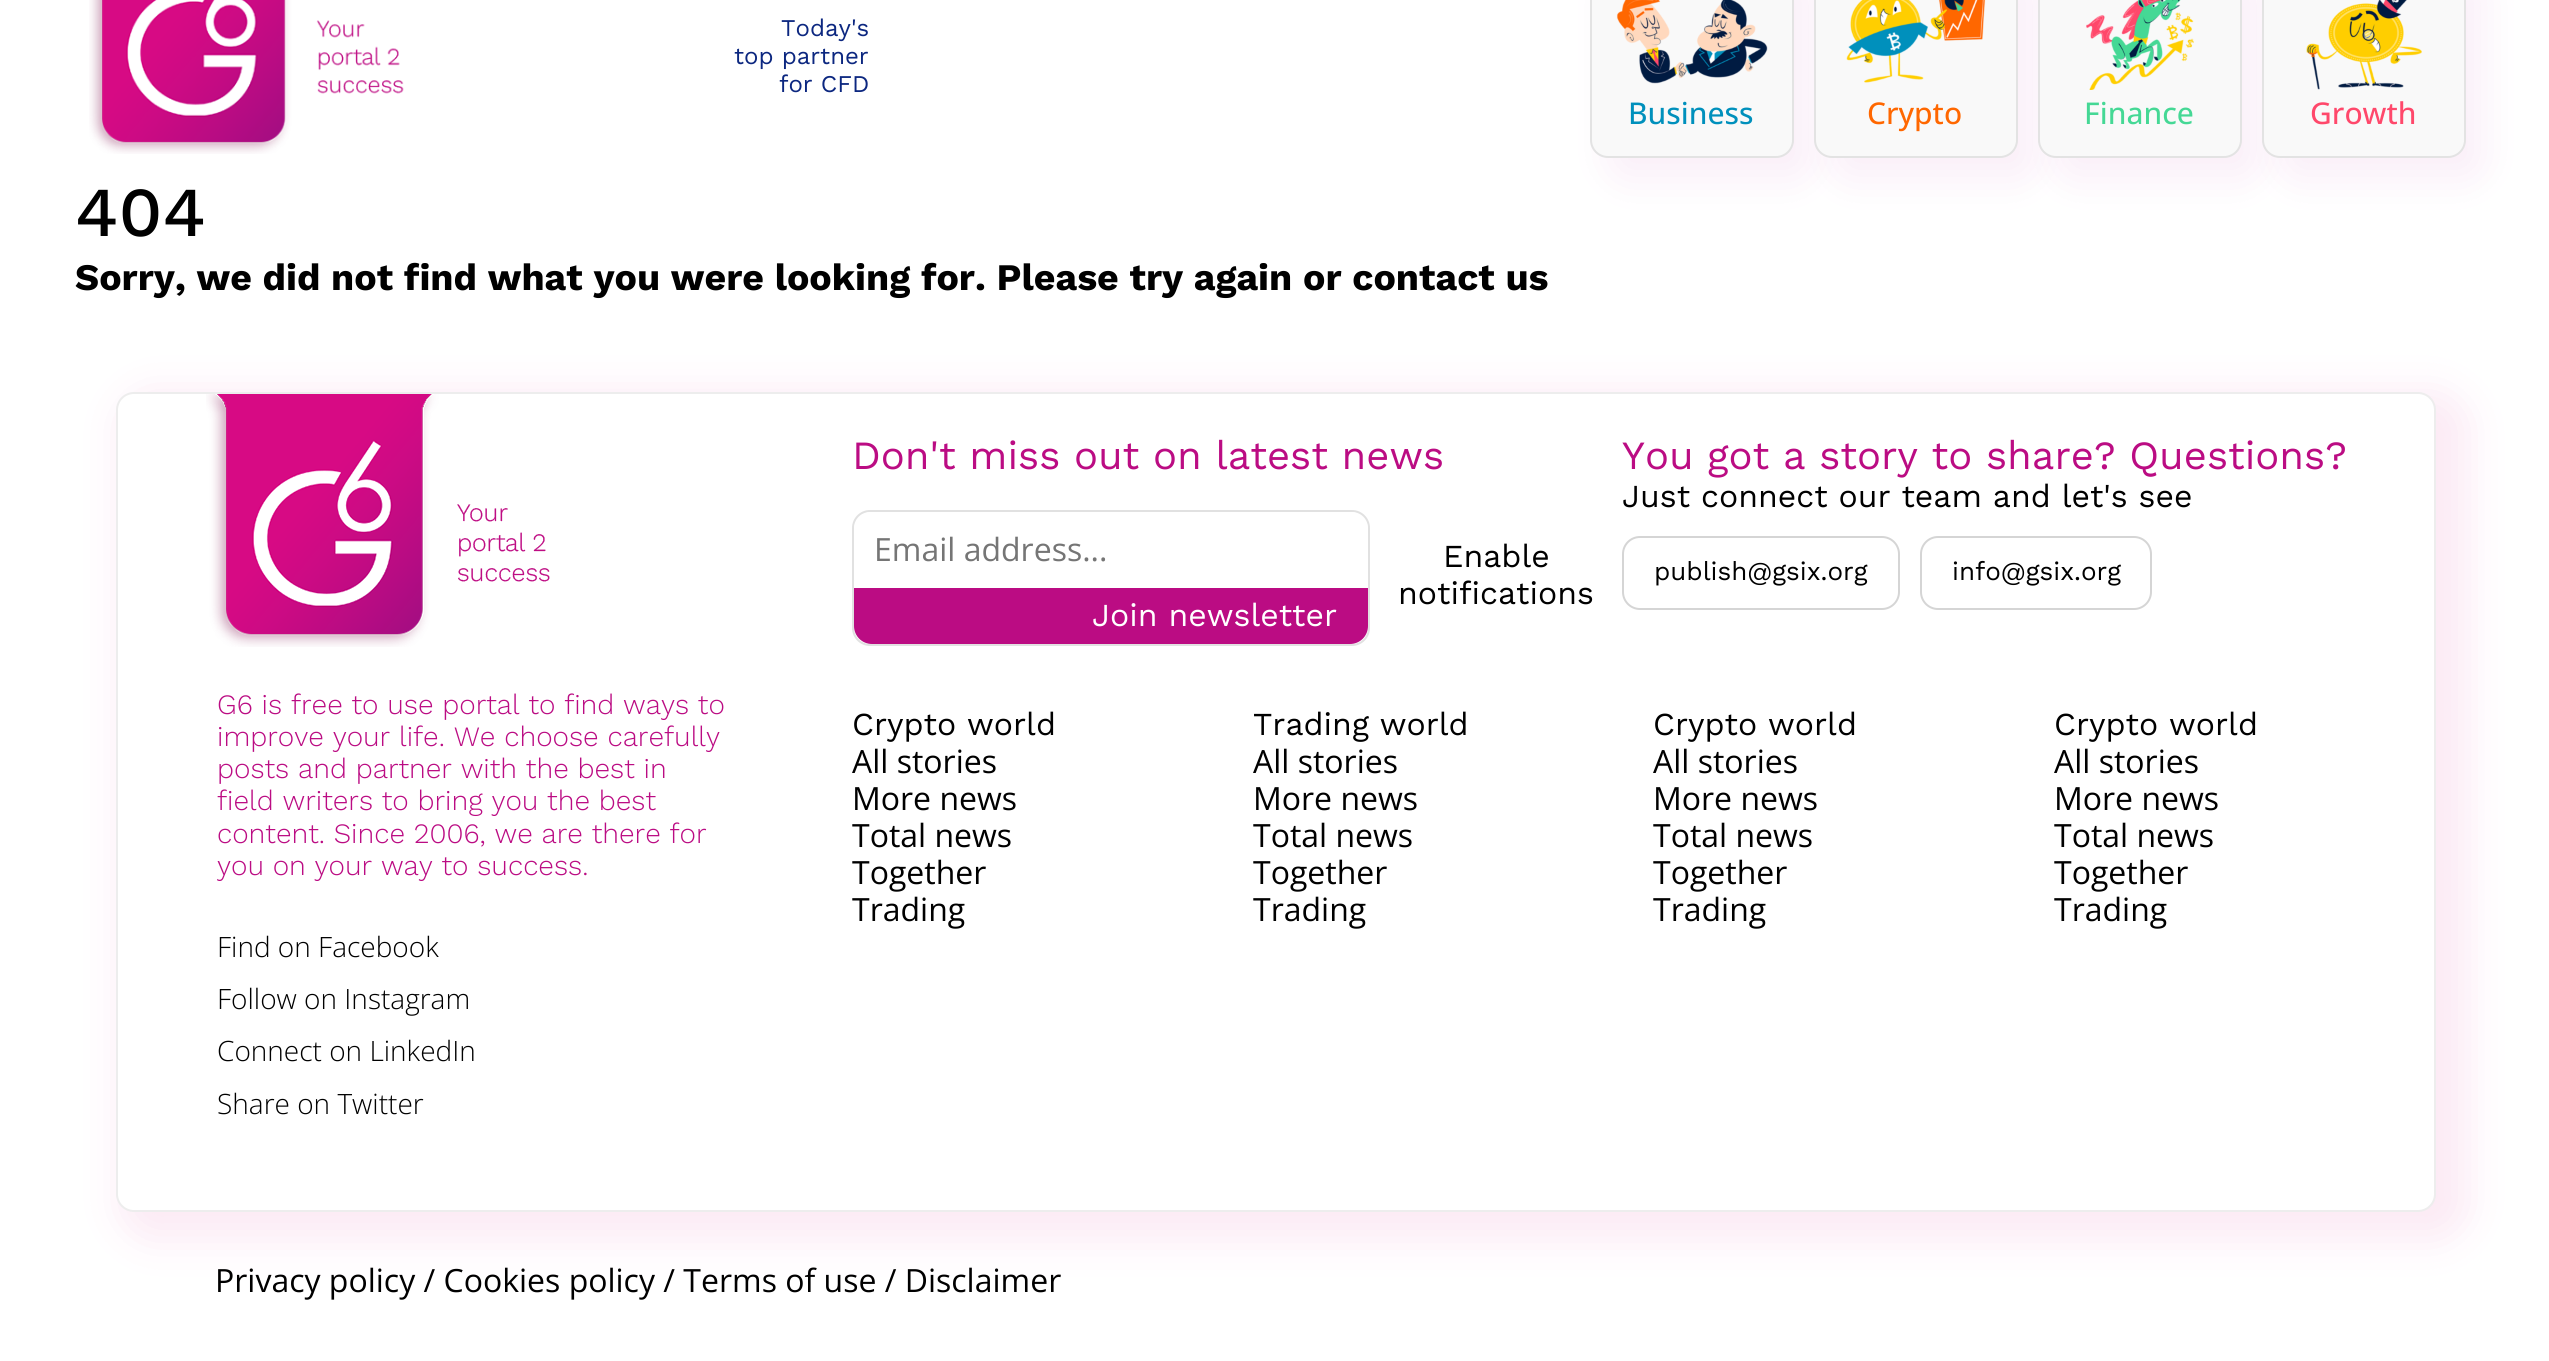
#include <cairo.h>
#include <math.h>
#include <stddef.h>

static cairo_t *ctx;

static void use_color(int r, int g, int b) {
    cairo_set_source_rgb(ctx, r / 255.0, g / 255.0, b / 255.0);
}

static void round_rect(double x, double y, double w, double h, double r) {
    cairo_new_sub_path(ctx);
    cairo_arc(ctx, x + w - r, y + h - r, r, 0, M_PI / 2);
    cairo_arc(ctx, x + r, y + h - r, r, M_PI / 2, M_PI);
    cairo_arc(ctx, x + r, y + r, r, M_PI, 1.5 * M_PI);
    cairo_arc(ctx, x + w - r, y + r, r, 1.5 * M_PI, 2 * M_PI);
    cairo_close_path(ctx);
}

static void shadow(double x, double y, double w, double h, double r, double blur, double alpha) {
    cairo_push_group_with_content(ctx, CAIRO_CONTENT_ALPHA);
    cairo_set_operator(ctx, CAIRO_OPERATOR_SOURCE);
    for (int i = 15; i >= -15 && fmin(w, h) + blur * i / 3 > 0; i -= 2) {
        double e = blur * i / 6;
        cairo_set_source_rgba(ctx, 0, 0, 0, alpha * erfc((i - 1) / 8.5) / 2);
        round_rect(x - e, y - e, w + 2 * e, h + 2 * e, fmax(0, fmin(r + e + blur * .6, fmin(w, h) / 2 + e)));
        cairo_fill(ctx);
    }
    cairo_pattern_t *soft = cairo_pop_group(ctx);
    cairo_mask(ctx, soft);
    cairo_pattern_destroy(soft);
}

static void picture(const char *path, double x, double y, double w, double h) {
    cairo_surface_t *image = cairo_image_surface_create_from_png(path);
    cairo_save(ctx);
    cairo_set_source_surface(ctx, image, x, y);
    cairo_rectangle(ctx, x, y, w, h);
    cairo_fill(ctx);
    cairo_restore(ctx);
    cairo_surface_destroy(image);
}

int main(void) {
    cairo_surface_t *surface = cairo_image_surface_create(CAIRO_FORMAT_RGB24, 2549, 1361);
    ctx = cairo_create(surface);
    cairo_font_options_t *options = cairo_font_options_create();
    cairo_font_options_set_hint_metrics(options, CAIRO_HINT_METRICS_OFF);
    cairo_font_options_set_hint_style(options, CAIRO_HINT_STYLE_NONE);
    cairo_set_font_options(ctx, options);
    cairo_set_miter_limit(ctx, 4);
    use_color(255, 255, 255);
    cairo_paint(ctx);
    picture("img1.png", 89, 0, 315, 154);
    cairo_select_font_face(ctx, "Work Sans", CAIRO_FONT_SLANT_NORMAL, CAIRO_FONT_WEIGHT_NORMAL);
    cairo_set_font_size(ctx, 24);
    use_color(12, 39, 128);
    cairo_move_to(ctx, 781, 36);
    cairo_show_text(ctx, "Today's");
    cairo_move_to(ctx, 734, 64);
    cairo_show_text(ctx, "top partner");
    cairo_move_to(ctx, 779, 92);
    cairo_show_text(ctx, "for CFD");
    use_color(185, 12, 153);
    shadow(1608, -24, 204, 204, 18, 20, 0.07);
    use_color(249, 249, 249);
    round_rect(1591, -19, 202, 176, 17);
    cairo_fill_preserve(ctx);
    use_color(227, 227, 227);
    cairo_stroke(ctx);
    picture("img2.png", 1616, 0, 152, 84);
    cairo_select_font_face(ctx, "Open Sans Medium", CAIRO_FONT_SLANT_NORMAL, CAIRO_FONT_WEIGHT_NORMAL);
    cairo_set_font_size(ctx, 30);
    use_color(0, 144, 188);
    cairo_move_to(ctx, 1628, 124);
    cairo_show_text(ctx, "Business");
    use_color(185, 12, 153);
    shadow(1832, -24, 204, 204, 18, 20, 0.07);
    use_color(249, 249, 249);
    round_rect(1815, -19, 202, 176, 17);
    cairo_fill_preserve(ctx);
    use_color(227, 227, 227);
    cairo_stroke(ctx);
    picture("img3.png", 1846, 0, 140, 83);
    use_color(255, 103, 0);
    cairo_move_to(ctx, 1867, 124);
    cairo_show_text(ctx, "Crypto");
    use_color(185, 12, 153);
    shadow(2056, -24, 204, 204, 18, 20, 0.07);
    use_color(249, 249, 249);
    round_rect(2039, -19, 202, 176, 17);
    cairo_fill_preserve(ctx);
    use_color(227, 227, 227);
    cairo_stroke(ctx);
    picture("img4.png", 2086, 0, 108, 90);
    use_color(69, 216, 149);
    cairo_move_to(ctx, 2084, 124);
    cairo_show_text(ctx, "Finance");
    use_color(185, 12, 153);
    shadow(2280, -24, 204, 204, 18, 20, 0.07);
    use_color(249, 249, 249);
    round_rect(2263, -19, 202, 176, 17);
    cairo_fill_preserve(ctx);
    use_color(227, 227, 227);
    cairo_stroke(ctx);
    picture("img5.png", 2306, 0, 116, 90);
    use_color(255, 72, 107);
    cairo_move_to(ctx, 2310, 124);
    cairo_show_text(ctx, "Growth");
    cairo_select_font_face(ctx, "Work Sans Medium", CAIRO_FONT_SLANT_NORMAL, CAIRO_FONT_WEIGHT_NORMAL);
    cairo_set_font_size(ctx, 70);
    use_color(0, 0, 0);
    cairo_move_to(ctx, 75, 236);
    cairo_show_text(ctx, "404");
    cairo_select_font_face(ctx, "Work Sans", CAIRO_FONT_SLANT_NORMAL, CAIRO_FONT_WEIGHT_BOLD);
    cairo_set_font_size(ctx, 37.45);
    cairo_move_to(ctx, 75, 290);
    cairo_show_text(ctx, "Sorry, we did not find what you were looking for. Please try again or contact us");
    use_color(215, 10, 132);
    shadow(120, 392, 2348, 848, 32, 20, 0.09);
    use_color(255, 255, 255);
    round_rect(117, 393, 2318, 818, 17);
    cairo_fill_preserve(ctx);
    use_color(237, 237, 237);
    cairo_stroke(ctx);
    picture("img6.png", 206, 394, 344, 253);
    cairo_select_font_face(ctx, "Work Sans Light", CAIRO_FONT_SLANT_NORMAL, CAIRO_FONT_WEIGHT_NORMAL);
    cairo_set_font_size(ctx, 28);
    use_color(187, 12, 131);
    cairo_move_to(ctx, 217, 714);
    cairo_show_text(ctx, "G6 is free to use portal to find ways to");
    cairo_move_to(ctx, 217, 746);
    cairo_show_text(ctx, "improve your life. We choose carefully");
    cairo_move_to(ctx, 217, 778);
    cairo_show_text(ctx, "posts and partner with the best in");
    cairo_move_to(ctx, 217, 810);
    cairo_show_text(ctx, "field writers to bring you the best");
    cairo_move_to(ctx, 217, 843);
    cairo_show_text(ctx, "content. Since 2006, we are there for");
    cairo_move_to(ctx, 217, 875);
    cairo_show_text(ctx, "you on your way to success.");
    cairo_select_font_face(ctx, "Open Sans Light", CAIRO_FONT_SLANT_NORMAL, CAIRO_FONT_WEIGHT_NORMAL);
    use_color(0, 0, 0);
    cairo_move_to(ctx, 217, 957);
    cairo_show_text(ctx, "Find on Facebook");
    cairo_move_to(ctx, 217, 1009);
    cairo_show_text(ctx, "Follow on Instagram");
    cairo_move_to(ctx, 217, 1061);
    cairo_show_text(ctx, "Connect on LinkedIn");
    cairo_move_to(ctx, 217, 1114);
    cairo_show_text(ctx, "Share on Twitter");
    cairo_select_font_face(ctx, "Work Sans", CAIRO_FONT_SLANT_NORMAL, CAIRO_FONT_WEIGHT_NORMAL);
    cairo_set_font_size(ctx, 40);
    use_color(187, 12, 131);
    cairo_move_to(ctx, 852, 469);
    cairo_show_text(ctx, "Don't miss out on latest news");
    round_rect(853, 511, 516, 134, 17);
    use_color(225, 225, 225);
    cairo_stroke(ctx);
    use_color(255, 255, 255);
    cairo_new_path(ctx);
    cairo_move_to(ctx, 872, 512);
    cairo_line_to(ctx, 1350, 512);
    cairo_curve_to(ctx, 1360, 512, 1368, 520, 1368, 530);
    cairo_line_to(ctx, 1368, 588);
    cairo_line_to(ctx, 854, 588);
    cairo_line_to(ctx, 854, 530);
    cairo_curve_to(ctx, 854, 520, 862, 512, 872, 512);
    cairo_close_path(ctx);
    cairo_fill(ctx);
    cairo_select_font_face(ctx, "Open Sans", CAIRO_FONT_SLANT_NORMAL, CAIRO_FONT_WEIGHT_NORMAL);
    cairo_set_font_size(ctx, 32);
    use_color(117, 117, 117);
    cairo_move_to(ctx, 874, 561);
    cairo_show_text(ctx, "Email address...");
    use_color(187, 12, 131);
    cairo_new_path(ctx);
    cairo_move_to(ctx, 854, 588);
    cairo_line_to(ctx, 1368, 588);
    cairo_line_to(ctx, 1368, 626);
    cairo_curve_to(ctx, 1368, 636, 1360, 644, 1350, 644);
    cairo_line_to(ctx, 872, 644);
    cairo_curve_to(ctx, 862, 644, 854, 636, 854, 626);
    cairo_close_path(ctx);
    cairo_fill(ctx);
    cairo_select_font_face(ctx, "Work Sans", CAIRO_FONT_SLANT_NORMAL, CAIRO_FONT_WEIGHT_NORMAL);
    use_color(255, 255, 255);
    cairo_move_to(ctx, 1092, 626);
    cairo_show_text(ctx, "Join newsletter");
    use_color(0, 0, 0);
    cairo_move_to(ctx, 1443, 567);
    cairo_show_text(ctx, "Enable");
    cairo_move_to(ctx, 1398, 604);
    cairo_show_text(ctx, "notifications");
    cairo_set_font_size(ctx, 40);
    use_color(187, 12, 131);
    cairo_move_to(ctx, 1622, 469);
    cairo_show_text(ctx, "You got a story to share? Questions?");
    cairo_set_font_size(ctx, 32);
    use_color(0, 0, 0);
    cairo_move_to(ctx, 1622, 507);
    cairo_show_text(ctx, "Just connect our team and let's see");
    round_rect(1623, 537, 276, 72, 17);
    use_color(213, 213, 213);
    cairo_stroke(ctx);
    cairo_set_font_size(ctx, 26);
    use_color(0, 0, 0);
    cairo_move_to(ctx, 1654, 580);
    cairo_show_text(ctx, "publish@gsix.org");
    round_rect(1921, 537, 230, 72, 17);
    use_color(213, 213, 213);
    cairo_stroke(ctx);
    use_color(0, 0, 0);
    cairo_move_to(ctx, 1952, 580);
    cairo_show_text(ctx, "info@gsix.org");
    cairo_set_font_size(ctx, 32);
    cairo_move_to(ctx, 852, 735);
    cairo_show_text(ctx, "Crypto world");
    cairo_select_font_face(ctx, "Open Sans", CAIRO_FONT_SLANT_NORMAL, CAIRO_FONT_WEIGHT_NORMAL);
    cairo_move_to(ctx, 852, 773);
    cairo_show_text(ctx, "All stories");
    cairo_move_to(ctx, 852, 810);
    cairo_show_text(ctx, "More news");
    cairo_move_to(ctx, 852, 847);
    cairo_show_text(ctx, "Total news");
    cairo_move_to(ctx, 852, 884);
    cairo_show_text(ctx, "Together");
    cairo_move_to(ctx, 852, 921);
    cairo_show_text(ctx, "Trading");
    cairo_select_font_face(ctx, "Work Sans", CAIRO_FONT_SLANT_NORMAL, CAIRO_FONT_WEIGHT_NORMAL);
    cairo_move_to(ctx, 1253, 735);
    cairo_show_text(ctx, "Trading world");
    cairo_select_font_face(ctx, "Open Sans", CAIRO_FONT_SLANT_NORMAL, CAIRO_FONT_WEIGHT_NORMAL);
    cairo_move_to(ctx, 1253, 773);
    cairo_show_text(ctx, "All stories");
    cairo_move_to(ctx, 1253, 810);
    cairo_show_text(ctx, "More news");
    cairo_move_to(ctx, 1253, 847);
    cairo_show_text(ctx, "Total news");
    cairo_move_to(ctx, 1253, 884);
    cairo_show_text(ctx, "Together");
    cairo_move_to(ctx, 1253, 921);
    cairo_show_text(ctx, "Trading");
    cairo_select_font_face(ctx, "Work Sans", CAIRO_FONT_SLANT_NORMAL, CAIRO_FONT_WEIGHT_NORMAL);
    cairo_move_to(ctx, 1653, 735);
    cairo_show_text(ctx, "Crypto world");
    cairo_select_font_face(ctx, "Open Sans", CAIRO_FONT_SLANT_NORMAL, CAIRO_FONT_WEIGHT_NORMAL);
    cairo_move_to(ctx, 1653, 773);
    cairo_show_text(ctx, "All stories");
    cairo_move_to(ctx, 1653, 810);
    cairo_show_text(ctx, "More news");
    cairo_move_to(ctx, 1653, 847);
    cairo_show_text(ctx, "Total news");
    cairo_move_to(ctx, 1653, 884);
    cairo_show_text(ctx, "Together");
    cairo_move_to(ctx, 1653, 921);
    cairo_show_text(ctx, "Trading");
    cairo_select_font_face(ctx, "Work Sans", CAIRO_FONT_SLANT_NORMAL, CAIRO_FONT_WEIGHT_NORMAL);
    cairo_move_to(ctx, 2054, 735);
    cairo_show_text(ctx, "Crypto world");
    cairo_select_font_face(ctx, "Open Sans", CAIRO_FONT_SLANT_NORMAL, CAIRO_FONT_WEIGHT_NORMAL);
    cairo_move_to(ctx, 2054, 773);
    cairo_show_text(ctx, "All stories");
    cairo_move_to(ctx, 2054, 810);
    cairo_show_text(ctx, "More news");
    cairo_move_to(ctx, 2054, 847);
    cairo_show_text(ctx, "Total news");
    cairo_move_to(ctx, 2054, 884);
    cairo_show_text(ctx, "Together");
    cairo_move_to(ctx, 2054, 921);
    cairo_show_text(ctx, "Trading");
    cairo_move_to(ctx, 215, 1292);
    cairo_show_text(ctx, "Privacy policy / Cookies policy / Terms of use / Disclaimer");
    cairo_surface_write_to_png(surface, "result.png");
    cairo_font_options_destroy(options);
    cairo_destroy(ctx);
    cairo_surface_destroy(surface);
    return 0;
}
